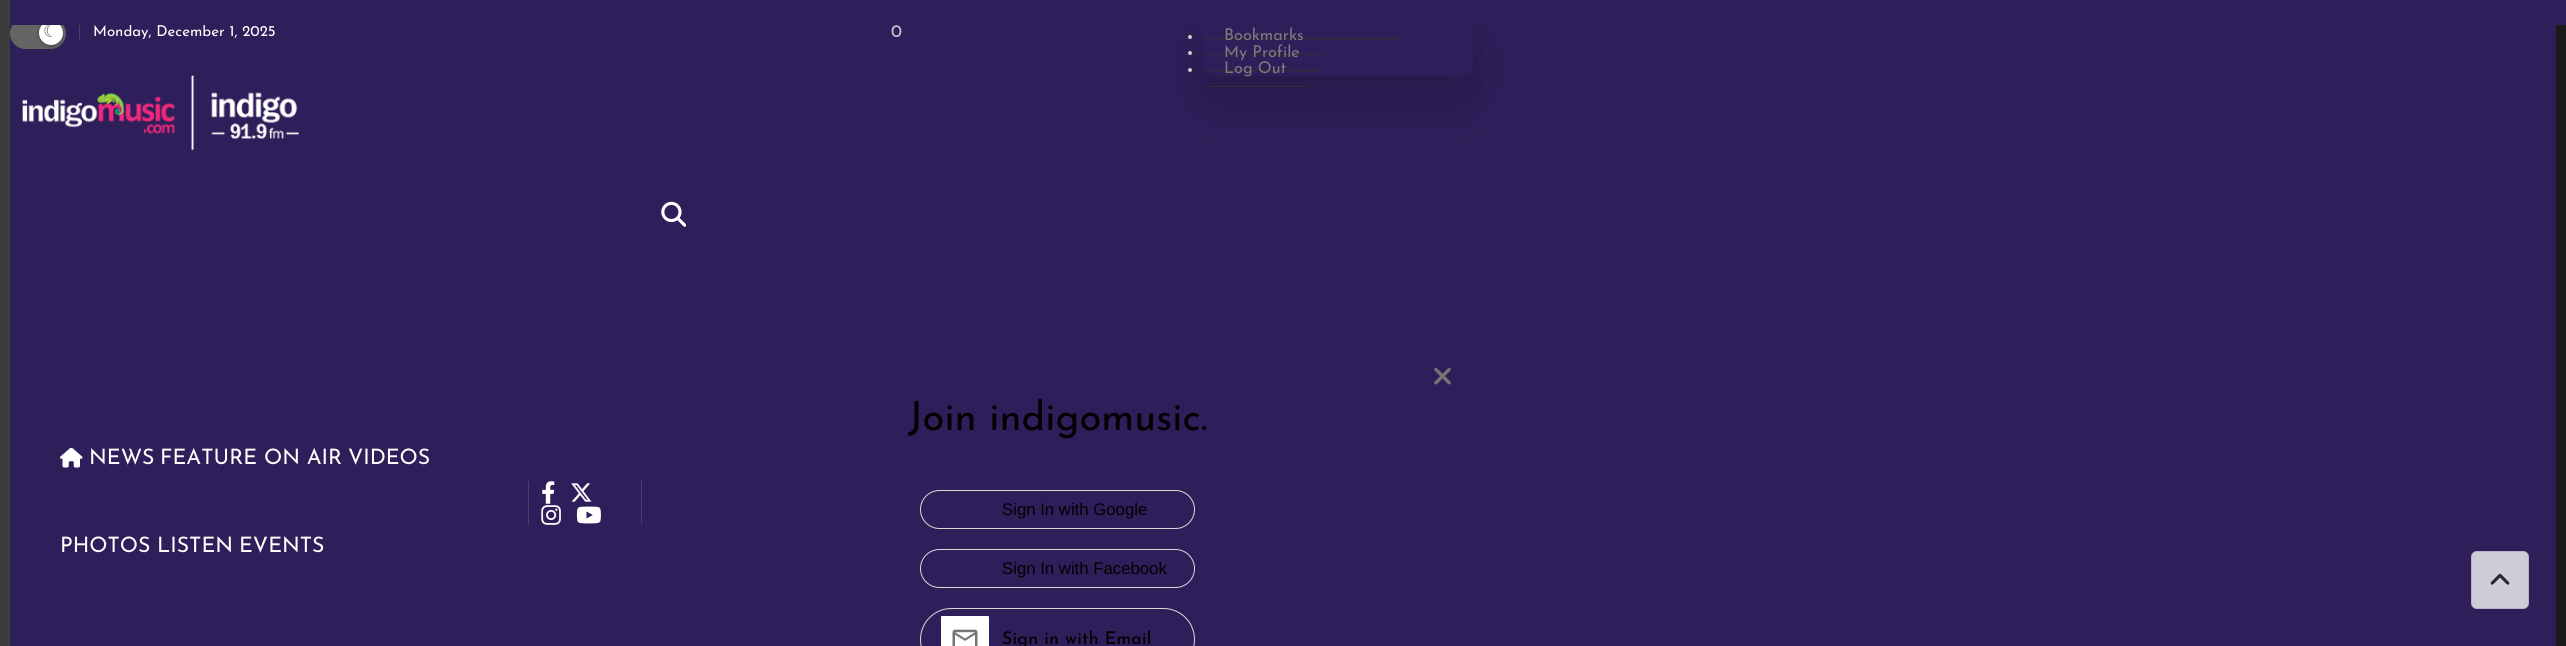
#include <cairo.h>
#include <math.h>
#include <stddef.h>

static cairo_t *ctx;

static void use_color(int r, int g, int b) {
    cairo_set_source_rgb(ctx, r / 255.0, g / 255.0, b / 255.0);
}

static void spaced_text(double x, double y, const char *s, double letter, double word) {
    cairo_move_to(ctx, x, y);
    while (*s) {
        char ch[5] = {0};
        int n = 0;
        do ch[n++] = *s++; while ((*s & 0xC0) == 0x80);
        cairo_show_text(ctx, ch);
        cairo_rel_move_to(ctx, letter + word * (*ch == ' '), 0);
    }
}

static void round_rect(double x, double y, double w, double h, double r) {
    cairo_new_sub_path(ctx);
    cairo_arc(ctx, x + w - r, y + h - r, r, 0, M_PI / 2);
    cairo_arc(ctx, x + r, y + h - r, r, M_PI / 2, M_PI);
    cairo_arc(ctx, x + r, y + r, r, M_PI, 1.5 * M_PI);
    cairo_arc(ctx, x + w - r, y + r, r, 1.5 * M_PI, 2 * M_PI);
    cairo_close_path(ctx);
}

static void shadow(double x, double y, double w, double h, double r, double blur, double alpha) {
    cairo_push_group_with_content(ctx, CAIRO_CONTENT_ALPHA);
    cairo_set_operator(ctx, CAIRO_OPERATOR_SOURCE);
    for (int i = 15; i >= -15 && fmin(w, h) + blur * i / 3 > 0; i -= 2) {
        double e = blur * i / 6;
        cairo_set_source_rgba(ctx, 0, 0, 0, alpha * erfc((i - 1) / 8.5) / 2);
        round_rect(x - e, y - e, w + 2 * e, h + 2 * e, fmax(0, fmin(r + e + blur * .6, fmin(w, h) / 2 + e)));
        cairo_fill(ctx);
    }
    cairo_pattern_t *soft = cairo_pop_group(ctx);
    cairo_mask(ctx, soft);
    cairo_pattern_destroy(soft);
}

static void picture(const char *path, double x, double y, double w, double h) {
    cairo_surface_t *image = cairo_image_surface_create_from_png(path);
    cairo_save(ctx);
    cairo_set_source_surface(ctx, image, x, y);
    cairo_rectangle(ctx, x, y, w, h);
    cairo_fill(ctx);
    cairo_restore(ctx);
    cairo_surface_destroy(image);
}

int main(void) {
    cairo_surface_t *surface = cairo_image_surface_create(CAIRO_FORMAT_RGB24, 2566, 646);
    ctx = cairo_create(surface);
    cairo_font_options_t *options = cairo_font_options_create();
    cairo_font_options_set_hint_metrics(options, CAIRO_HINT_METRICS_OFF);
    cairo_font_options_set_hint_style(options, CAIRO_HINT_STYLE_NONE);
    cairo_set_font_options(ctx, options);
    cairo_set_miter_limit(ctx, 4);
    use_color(26, 26, 26);
    cairo_paint(ctx);
    use_color(60, 60, 60);
    cairo_rectangle(ctx, 0, 0, 10, 646);
    cairo_fill(ctx);
    use_color(46, 31, 90);
    cairo_rectangle(ctx, 10, 25, 2546, 621);
    cairo_fill(ctx);
    use_color(100, 100, 100);
    round_rect(10, 18, 56, 31, 15.5);
    cairo_fill(ctx);
    use_color(0, 0, 0);
    shadow(39, 23, 24, 23, 11.5, 2, 0.3);
    use_color(255, 255, 255);
    cairo_arc(ctx, 51, 33, 12, 0, 2 * M_PI);
    cairo_fill(ctx);
    cairo_select_font_face(ctx, "DejaVu Sans", CAIRO_FONT_SLANT_NORMAL, CAIRO_FONT_WEIGHT_NORMAL);
    cairo_set_font_size(ctx, 17.5);
    use_color(102, 102, 102);
    cairo_move_to(ctx, 43, 37);
    cairo_show_text(ctx, "☾");
    cairo_select_font_face(ctx, "Josefin Sans", CAIRO_FONT_SLANT_NORMAL, CAIRO_FONT_WEIGHT_NORMAL);
    cairo_set_font_size(ctx, 15);
    use_color(255, 255, 255);
    cairo_move_to(ctx, 93, 36);
    cairo_show_text(ctx, "Monday, December 1, 2025");
    cairo_save(ctx);
    cairo_set_fill_rule(ctx, CAIRO_FILL_RULE_EVEN_ODD);
    cairo_new_path(ctx);
    cairo_move_to(ctx, 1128, 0);
    cairo_line_to(ctx, 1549, 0);
    cairo_line_to(ctx, 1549, 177);
    cairo_line_to(ctx, 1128, 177);
    cairo_close_path(ctx);
    cairo_move_to(ctx, 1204, 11);
    cairo_line_to(ctx, 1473, 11);
    cairo_line_to(ctx, 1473, 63);
    cairo_curve_to(ctx, 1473, 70, 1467, 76, 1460, 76);
    cairo_line_to(ctx, 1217, 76);
    cairo_curve_to(ctx, 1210, 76, 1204, 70, 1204, 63);
    cairo_close_path(ctx);
    cairo_clip(ctx);
    use_color(0, 0, 0);
    shadow(1204, 36, 269, 65, 13, 25, 0.18);
    cairo_restore(ctx);
    use_color(46, 31, 90);
    cairo_rectangle(ctx, 10, 0, 2556, 25);
    cairo_fill(ctx);
    use_color(77, 65, 115);
    cairo_rectangle(ctx, 79, 25, 1, 15);
    cairo_fill(ctx);
    cairo_set_font_size(ctx, 17.5);
    use_color(202, 202, 202);
    cairo_move_to(ctx, 891, 37);
    cairo_show_text(ctx, "0");
    cairo_new_path(ctx);
    cairo_arc(ctx, 1190, 37, 2, 0, 2 * M_PI);
    cairo_fill(ctx);
    use_color(48, 48, 48);
    cairo_rectangle(ctx, 1204, 38, 196, 1);
    cairo_fill(ctx);
    cairo_set_font_size(ctx, 16.25);
    use_color(123, 123, 123);
    cairo_move_to(ctx, 1224, 40);
    cairo_show_text(ctx, "Bookmarks");
    use_color(48, 48, 48);
    cairo_rectangle(ctx, 1204, 54, 120, 1);
    cairo_fill(ctx);
    use_color(202, 202, 202);
    cairo_arc(ctx, 1190, 53, 2, 0, 2 * M_PI);
    cairo_fill(ctx);
    use_color(123, 123, 123);
    cairo_move_to(ctx, 1224, 57);
    cairo_show_text(ctx, "My Profile");
    use_color(48, 48, 48);
    cairo_rectangle(ctx, 1204, 70, 116, 1);
    cairo_fill(ctx);
    use_color(202, 202, 202);
    cairo_arc(ctx, 1190, 70, 2, 0, 2 * M_PI);
    cairo_fill(ctx);
    use_color(123, 123, 123);
    cairo_move_to(ctx, 1224, 73);
    cairo_show_text(ctx, "Log Out");
    use_color(48, 48, 48);
    cairo_rectangle(ctx, 1204, 86, 102, 1);
    cairo_fill(ctx);
    picture("img1.png", 22, 75, 277, 76);
    picture("img2.png", 60, 448, 23, 20);
    cairo_set_font_size(ctx, 21.25);
    use_color(255, 255, 255);
    cairo_move_to(ctx, 89, 464);
    cairo_show_text(ctx, "NEWS");
    cairo_move_to(ctx, 160, 464);
    cairo_show_text(ctx, "FEATURE");
    cairo_move_to(ctx, 264, 464);
    cairo_show_text(ctx, "ON AIR");
    cairo_move_to(ctx, 348, 464);
    cairo_show_text(ctx, "VIDEOS");
    cairo_move_to(ctx, 60, 552);
    cairo_show_text(ctx, "PHOTOS");
    cairo_move_to(ctx, 157, 552);
    cairo_show_text(ctx, "LISTEN");
    cairo_move_to(ctx, 239, 552);
    cairo_show_text(ctx, "EVENTS");
    use_color(77, 65, 115);
    cairo_rectangle(ctx, 641, 481, 1, 43);
    cairo_fill(ctx);
    cairo_rectangle(ctx, 528, 481, 1, 43);
    cairo_fill(ctx);
    picture("img3.png", 542, 481, 13, 23);
    picture("img4.png", 571, 483, 21, 19);
    picture("img5.png", 541, 505, 20, 20);
    picture("img6.png", 576, 506, 25, 18);
    picture("img7.png", 661, 201, 25, 26);
    picture("img8.png", 1434, 367, 17, 18);
    cairo_set_font_size(ctx, 40);
    use_color(0, 0, 0);
    cairo_move_to(ctx, 908, 430);
    cairo_show_text(ctx, "Join indigomusic.");
    round_rect(920.5, 490.5, 274, 38, 19);
    use_color(217, 217, 217);
    cairo_set_line_width(ctx, 1);
    cairo_stroke(ctx);
    cairo_select_font_face(ctx, "Liberation Sans", CAIRO_FONT_SLANT_NORMAL, CAIRO_FONT_WEIGHT_NORMAL);
    cairo_set_font_size(ctx, 16.75);
    use_color(0, 0, 0);
    cairo_move_to(ctx, 1002, 515);
    cairo_show_text(ctx, "Sign In with Google");
    round_rect(920.5, 549.5, 274, 38, 19);
    use_color(217, 217, 217);
    cairo_stroke(ctx);
    use_color(0, 0, 0);
    cairo_move_to(ctx, 1002, 574);
    cairo_show_text(ctx, "Sign In with Facebook");
    round_rect(920.5, 608.5, 274, 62, 31);
    use_color(217, 217, 217);
    cairo_stroke(ctx);
    picture("img9.png", 941, 616, 48, 30);
    cairo_select_font_face(ctx, "Josefin Sans Medium", CAIRO_FONT_SLANT_NORMAL, CAIRO_FONT_WEIGHT_NORMAL);
    cairo_set_font_size(ctx, 17.5);
    use_color(0, 0, 0);
    spaced_text(1002, 644, "Sign in with Email", 0.3, 0);
    use_color(208, 205, 218);
    round_rect(2471, 551, 58, 58, 6);
    cairo_fill(ctx);
    round_rect(2471.5, 551.5, 57, 57, 5.5);
    cairo_set_source_rgba(ctx, 0.035, 0.024, 0.071, 0.11);
    cairo_stroke(ctx);
    picture("img10.png", 2490, 573, 20, 12);
    cairo_surface_write_to_png(surface, "result.png");
    cairo_font_options_destroy(options);
    cairo_destroy(ctx);
    cairo_surface_destroy(surface);
    return 0;
}
